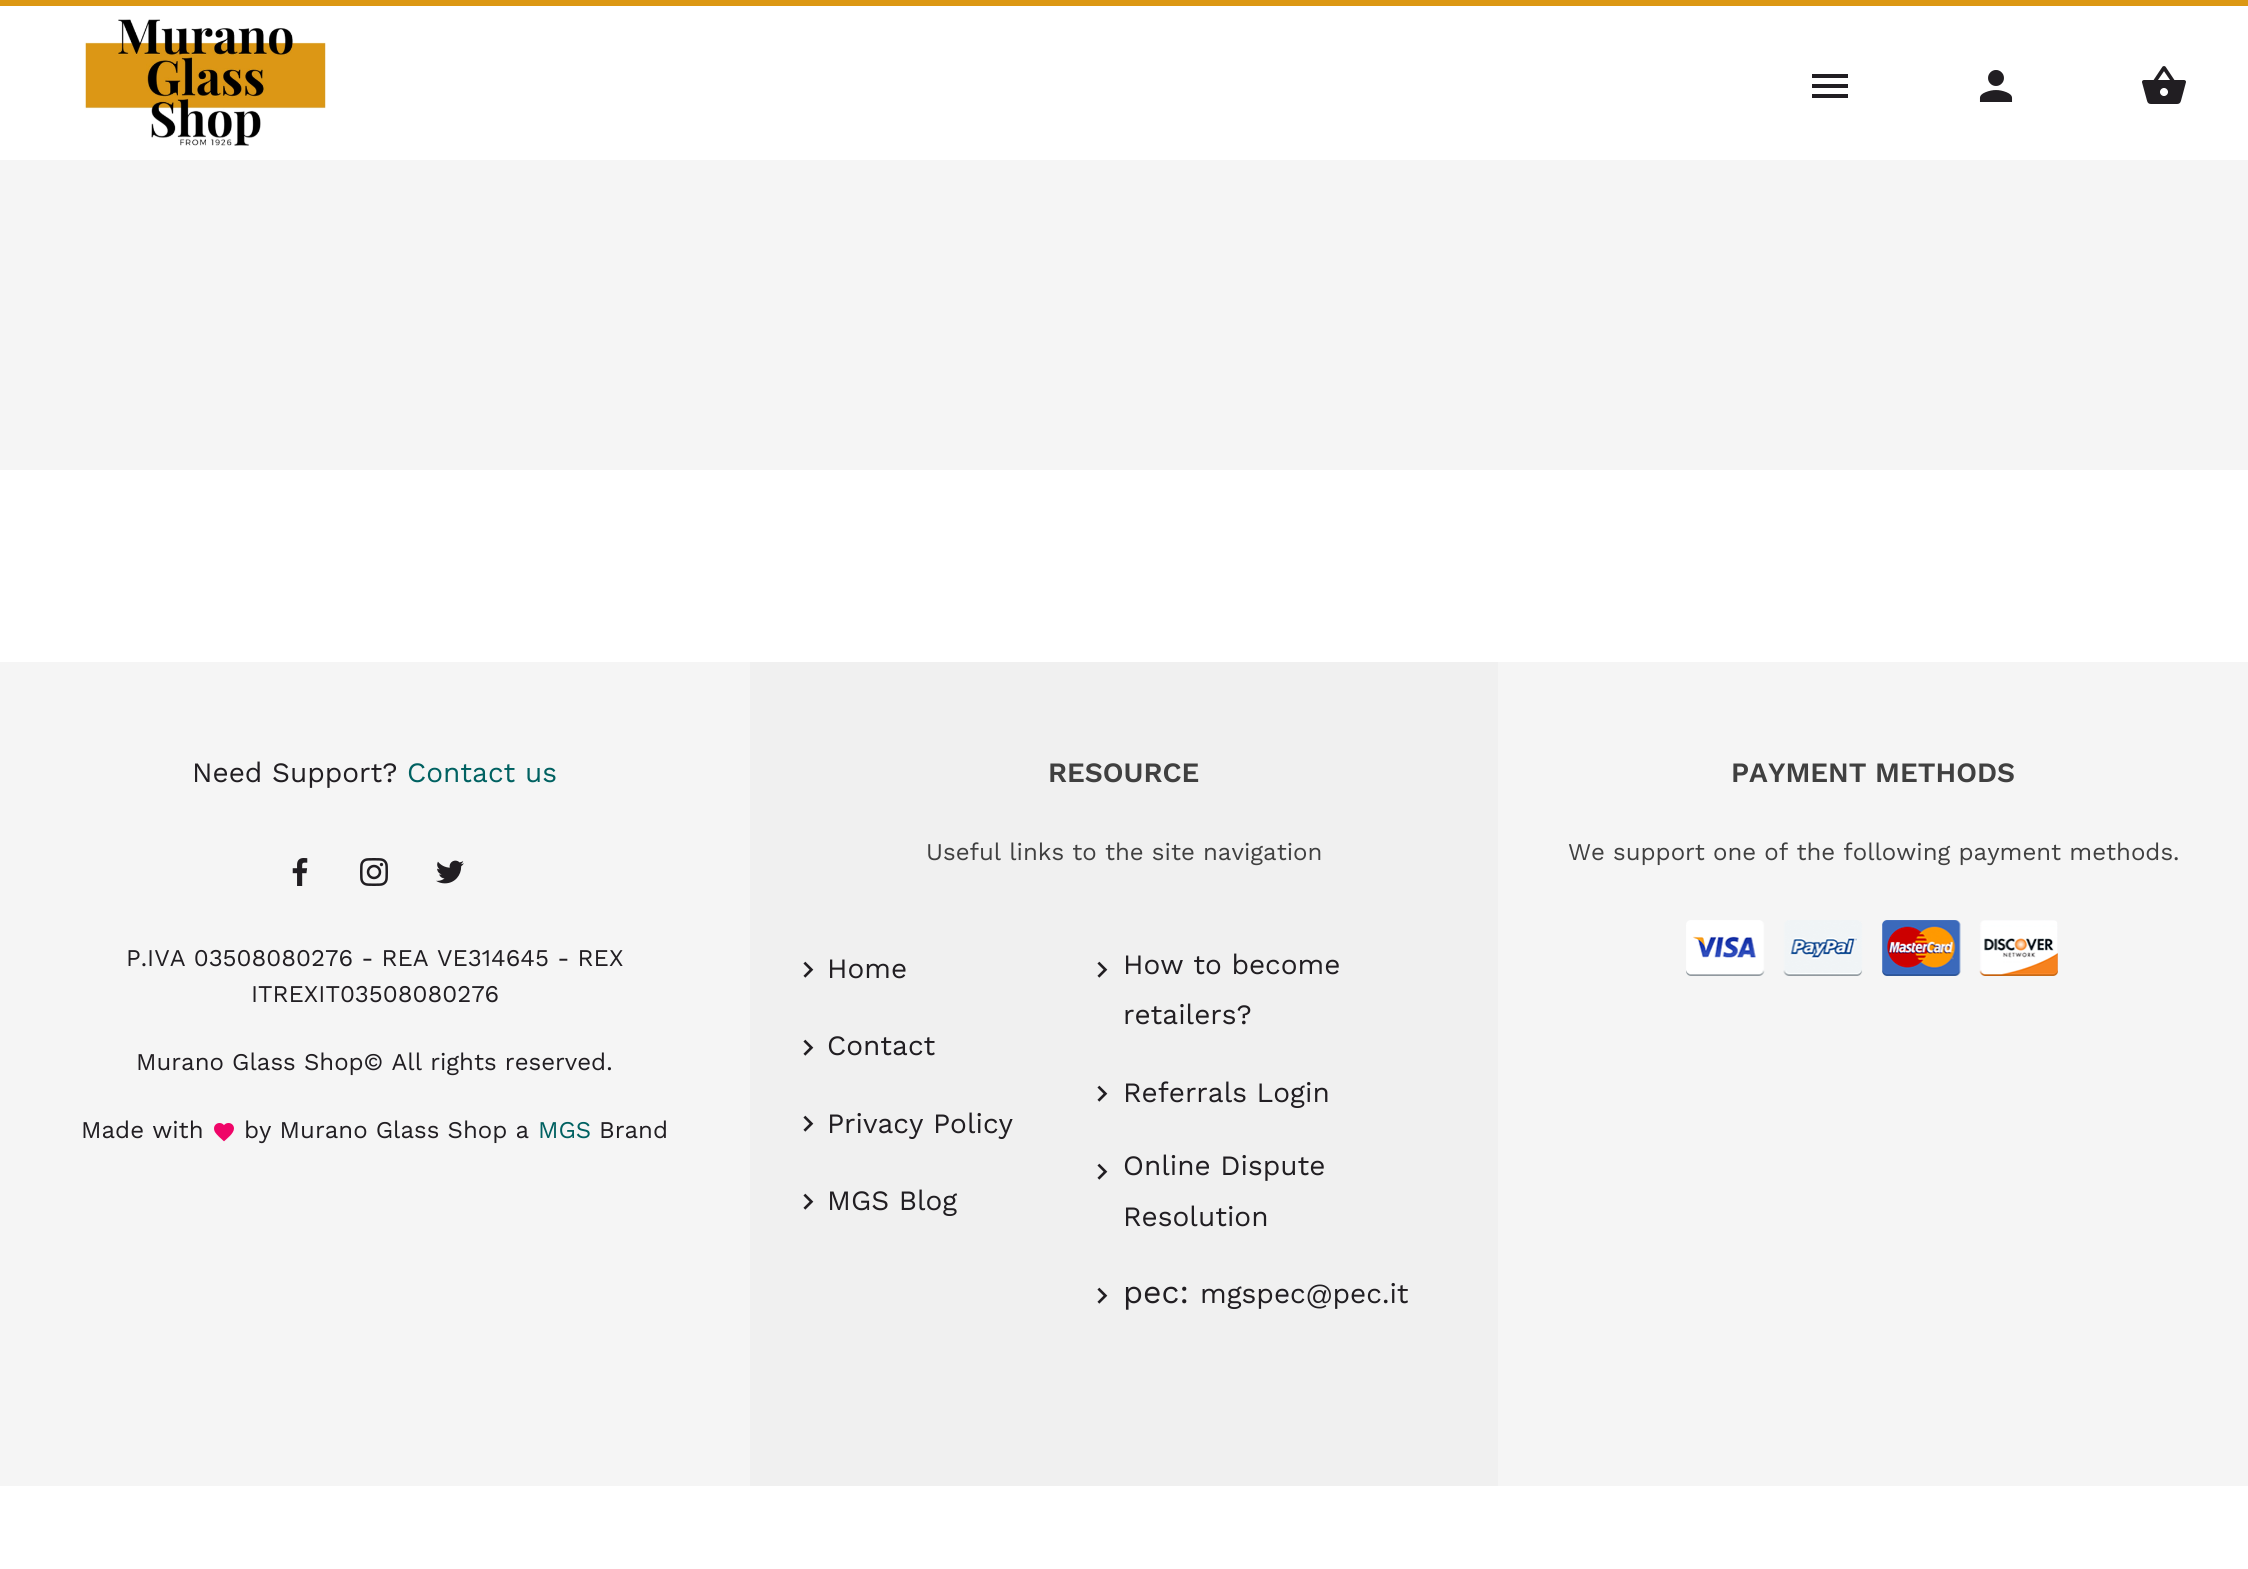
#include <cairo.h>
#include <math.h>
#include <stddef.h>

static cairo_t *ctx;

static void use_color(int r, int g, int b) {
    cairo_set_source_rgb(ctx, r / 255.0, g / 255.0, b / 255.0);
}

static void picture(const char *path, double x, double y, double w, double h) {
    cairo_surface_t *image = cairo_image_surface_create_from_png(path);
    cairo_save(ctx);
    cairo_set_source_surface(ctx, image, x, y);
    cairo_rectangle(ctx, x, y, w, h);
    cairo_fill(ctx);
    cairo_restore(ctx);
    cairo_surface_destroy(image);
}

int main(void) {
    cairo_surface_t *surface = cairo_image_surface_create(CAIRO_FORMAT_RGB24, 2248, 1569);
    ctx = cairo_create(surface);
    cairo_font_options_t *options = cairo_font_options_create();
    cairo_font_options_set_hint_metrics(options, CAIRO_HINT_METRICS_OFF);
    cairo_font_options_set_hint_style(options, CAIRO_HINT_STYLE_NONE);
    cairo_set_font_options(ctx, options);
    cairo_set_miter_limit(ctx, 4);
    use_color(255, 255, 255);
    cairo_paint(ctx);
    use_color(220, 152, 20);
    cairo_rectangle(ctx, 0, 0, 2248, 6);
    cairo_fill(ctx);
    picture("img1.png", 84, 19, 242, 127);
    use_color(33, 30, 34);
    cairo_new_path(ctx);
    cairo_move_to(ctx, 1812, 74);
    cairo_line_to(ctx, 1848, 74);
    cairo_line_to(ctx, 1848, 78);
    cairo_line_to(ctx, 1812, 78);
    cairo_close_path(ctx);
    cairo_move_to(ctx, 1812, 88);
    cairo_line_to(ctx, 1812, 84);
    cairo_line_to(ctx, 1848, 84);
    cairo_line_to(ctx, 1848, 88);
    cairo_close_path(ctx);
    cairo_move_to(ctx, 1812, 98);
    cairo_line_to(ctx, 1812, 94);
    cairo_line_to(ctx, 1848, 94);
    cairo_line_to(ctx, 1848, 98);
    cairo_close_path(ctx);
    cairo_fill(ctx);
    picture("img2.png", 1979, 70, 34, 32);
    picture("img3.png", 2142, 66, 44, 38);
    use_color(245, 245, 245);
    cairo_rectangle(ctx, 0, 160, 2248, 310);
    cairo_fill(ctx);
    cairo_rectangle(ctx, 0, 662, 750, 824);
    cairo_fill(ctx);
    cairo_select_font_face(ctx, "Work Sans", CAIRO_FONT_SLANT_NORMAL, CAIRO_FONT_WEIGHT_NORMAL);
    cairo_set_font_size(ctx, 28);
    use_color(33, 30, 34);
    cairo_move_to(ctx, 192, 782);
    cairo_show_text(ctx, "Need Support?");
    use_color(0, 97, 97);
    cairo_move_to(ctx, 407, 782);
    cairo_show_text(ctx, "Contact us");
    picture("img4.png", 292, 858, 16, 28);
    picture("img5.png", 360, 858, 28, 28);
    picture("img6.png", 436, 860, 28, 24);
    cairo_set_font_size(ctx, 24);
    use_color(33, 30, 34);
    cairo_move_to(ctx, 126, 966);
    cairo_show_text(ctx, "P.IVA 03508080276 - REA VE314645 - REX");
    cairo_move_to(ctx, 251, 1002);
    cairo_show_text(ctx, "ITREXIT03508080276");
    cairo_move_to(ctx, 136, 1070);
    cairo_show_text(ctx, "Murano Glass Shop© All rights reserved.");
    cairo_move_to(ctx, 81, 1138);
    cairo_show_text(ctx, "Made with");
    picture("img7.png", 214, 1123, 20, 19);
    cairo_move_to(ctx, 244, 1138);
    cairo_show_text(ctx, "by Murano Glass Shop a");
    use_color(0, 97, 97);
    cairo_move_to(ctx, 538, 1138);
    cairo_show_text(ctx, "MGS");
    use_color(33, 30, 34);
    cairo_move_to(ctx, 599, 1138);
    cairo_show_text(ctx, "Brand");
    use_color(240, 240, 240);
    cairo_rectangle(ctx, 750, 662, 748, 824);
    cairo_fill(ctx);
    cairo_select_font_face(ctx, "Work Sans SemiBold", CAIRO_FONT_SLANT_NORMAL, CAIRO_FONT_WEIGHT_NORMAL);
    cairo_set_font_size(ctx, 28);
    use_color(64, 64, 64);
    cairo_move_to(ctx, 1048, 782);
    cairo_show_text(ctx, "RESOURCE");
    cairo_select_font_face(ctx, "Work Sans", CAIRO_FONT_SLANT_NORMAL, CAIRO_FONT_WEIGHT_NORMAL);
    cairo_set_font_size(ctx, 24);
    cairo_move_to(ctx, 926, 860);
    cairo_show_text(ctx, "Useful links to the site navigation");
    picture("img8.png", 803, 961, 11, 17);
    cairo_set_font_size(ctx, 28);
    use_color(33, 30, 34);
    cairo_move_to(ctx, 827, 978);
    cairo_show_text(ctx, "Home");
    picture("img8.png", 803, 1039, 11, 17);
    cairo_move_to(ctx, 827, 1055);
    cairo_show_text(ctx, "Contact");
    picture("img8.png", 803, 1115, 11, 17);
    cairo_move_to(ctx, 827, 1133);
    cairo_show_text(ctx, "Privacy Policy");
    picture("img8.png", 803, 1193, 11, 17);
    cairo_move_to(ctx, 827, 1210);
    cairo_show_text(ctx, "MGS Blog");
    picture("img8.png", 1097, 961, 11, 17);
    cairo_move_to(ctx, 1123, 974);
    cairo_show_text(ctx, "How to become");
    cairo_move_to(ctx, 1123, 1024);
    cairo_show_text(ctx, "retailers?");
    picture("img8.png", 1097, 1085, 11, 17);
    cairo_move_to(ctx, 1123, 1102);
    cairo_show_text(ctx, "Referrals Login");
    picture("img8.png", 1097, 1163, 11, 17);
    cairo_move_to(ctx, 1123, 1175);
    cairo_show_text(ctx, "Online Dispute");
    cairo_move_to(ctx, 1123, 1226);
    cairo_show_text(ctx, "Resolution");
    picture("img8.png", 1097, 1287, 11, 17);
    cairo_set_font_size(ctx, 32);
    cairo_move_to(ctx, 1123, 1303);
    cairo_show_text(ctx, "pec:");
    cairo_set_font_size(ctx, 28);
    cairo_move_to(ctx, 1200, 1303);
    cairo_show_text(ctx, "mgspec@pec.it");
    use_color(245, 245, 245);
    cairo_rectangle(ctx, 1498, 662, 750, 824);
    cairo_fill(ctx);
    cairo_select_font_face(ctx, "Work Sans SemiBold", CAIRO_FONT_SLANT_NORMAL, CAIRO_FONT_WEIGHT_NORMAL);
    use_color(64, 64, 64);
    cairo_move_to(ctx, 1731, 782);
    cairo_show_text(ctx, "PAYMENT METHODS");
    cairo_select_font_face(ctx, "Work Sans", CAIRO_FONT_SLANT_NORMAL, CAIRO_FONT_WEIGHT_NORMAL);
    cairo_set_font_size(ctx, 24);
    cairo_move_to(ctx, 1568, 860);
    cairo_show_text(ctx, "We support one of the following payment methods.");
    picture("img9.png", 1686, 920, 372, 56);
    cairo_surface_write_to_png(surface, "result.png");
    cairo_font_options_destroy(options);
    cairo_destroy(ctx);
    cairo_surface_destroy(surface);
    return 0;
}
